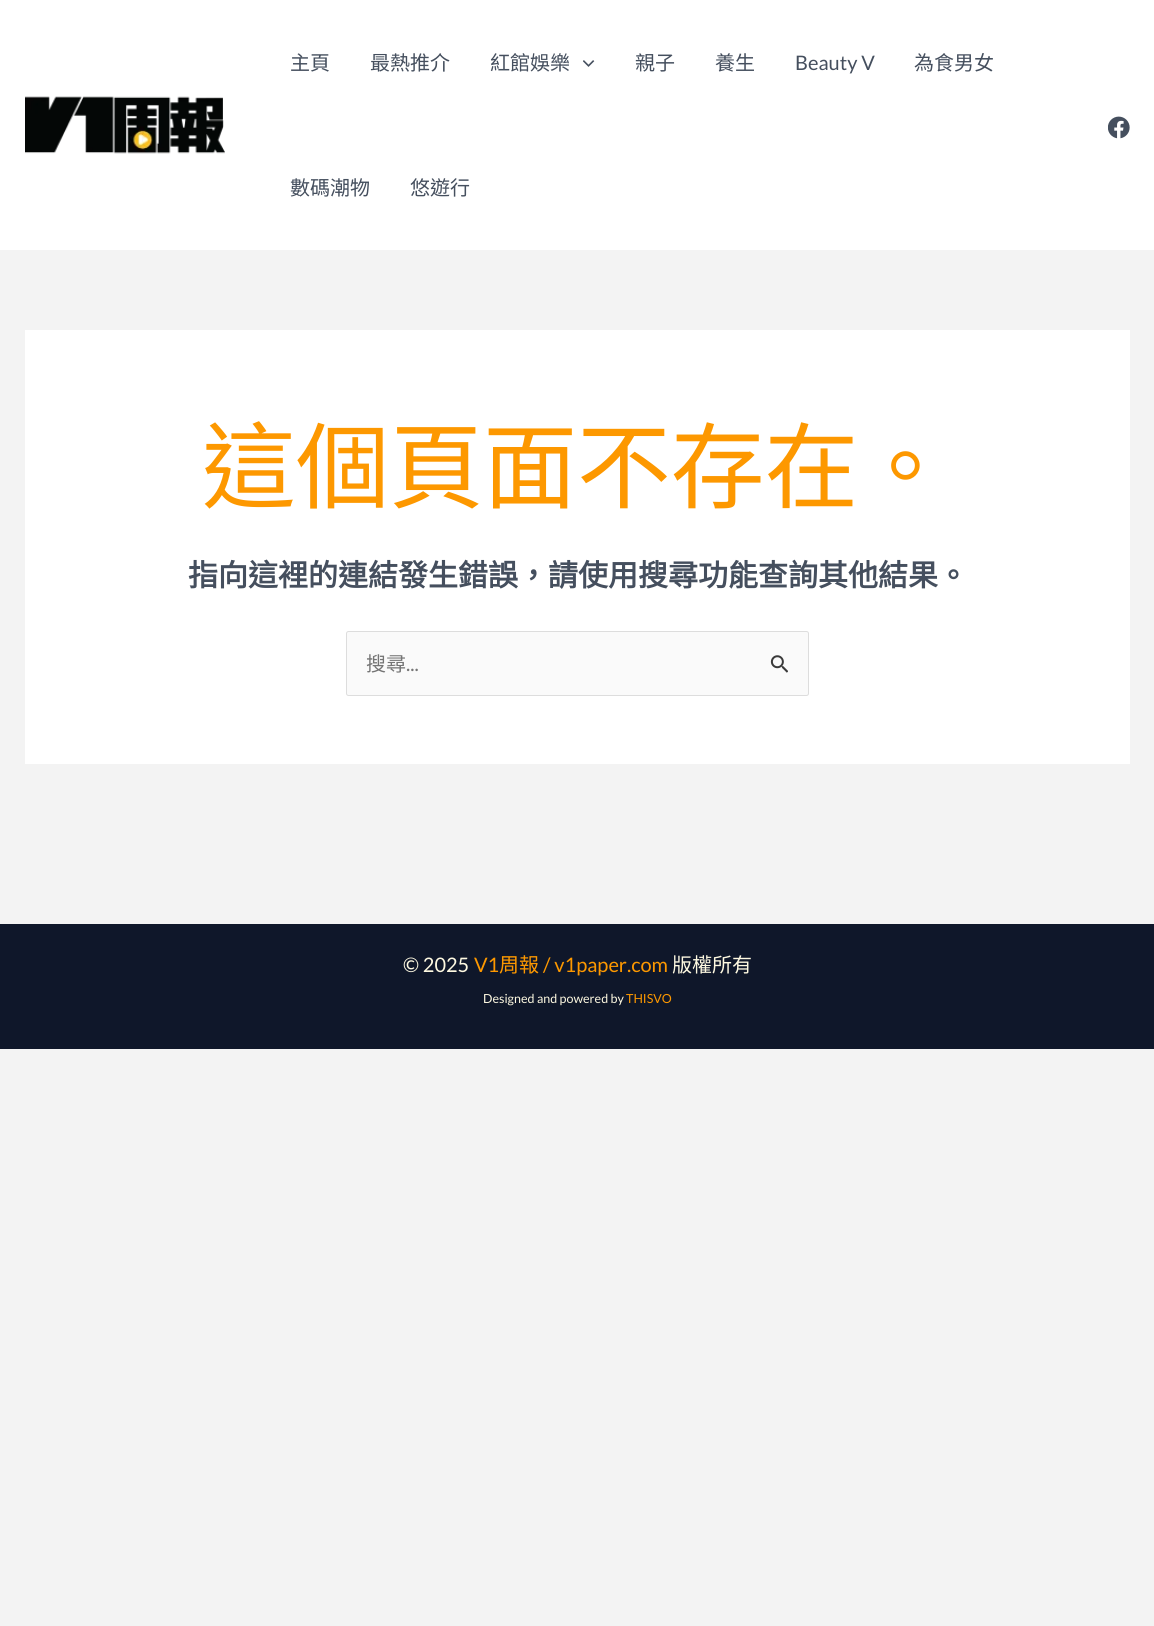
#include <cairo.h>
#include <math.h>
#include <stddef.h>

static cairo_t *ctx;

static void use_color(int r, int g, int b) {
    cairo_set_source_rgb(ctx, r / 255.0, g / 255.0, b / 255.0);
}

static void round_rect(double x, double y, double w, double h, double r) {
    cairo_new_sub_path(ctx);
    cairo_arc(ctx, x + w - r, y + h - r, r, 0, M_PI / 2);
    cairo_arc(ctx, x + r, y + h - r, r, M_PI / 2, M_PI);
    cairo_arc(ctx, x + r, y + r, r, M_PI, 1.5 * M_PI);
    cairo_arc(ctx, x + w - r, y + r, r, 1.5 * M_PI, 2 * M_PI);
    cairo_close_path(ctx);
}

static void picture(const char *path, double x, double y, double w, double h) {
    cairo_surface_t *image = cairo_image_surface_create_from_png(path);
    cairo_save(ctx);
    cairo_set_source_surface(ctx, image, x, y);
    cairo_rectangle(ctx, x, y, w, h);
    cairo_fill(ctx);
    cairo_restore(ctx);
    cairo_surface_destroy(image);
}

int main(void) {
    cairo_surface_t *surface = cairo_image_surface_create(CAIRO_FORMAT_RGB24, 1154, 1626);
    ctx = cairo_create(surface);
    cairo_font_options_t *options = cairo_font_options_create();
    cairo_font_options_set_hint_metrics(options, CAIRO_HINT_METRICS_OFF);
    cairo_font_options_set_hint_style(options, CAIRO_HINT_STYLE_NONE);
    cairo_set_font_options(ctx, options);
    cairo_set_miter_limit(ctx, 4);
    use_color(243, 243, 243);
    cairo_paint(ctx);
    use_color(255, 255, 255);
    cairo_rectangle(ctx, 0, 0, 1154, 250);
    cairo_fill(ctx);
    picture("img1.png", 25, 96, 200, 58);
    cairo_select_font_face(ctx, "Noto Sans CJK TC", CAIRO_FONT_SLANT_NORMAL, CAIRO_FONT_WEIGHT_NORMAL);
    cairo_set_font_size(ctx, 20);
    use_color(69, 79, 94);
    cairo_move_to(ctx, 290, 70);
    cairo_show_text(ctx, "主頁");
    cairo_move_to(ctx, 370, 70);
    cairo_show_text(ctx, "最熱推介");
    cairo_move_to(ctx, 490, 70);
    cairo_show_text(ctx, "紅館娛樂");
    picture("img2.png", 583, 60, 12, 7);
    cairo_move_to(ctx, 635, 70);
    cairo_show_text(ctx, "親子");
    cairo_move_to(ctx, 715, 70);
    cairo_show_text(ctx, "養生");
    cairo_select_font_face(ctx, "Lato", CAIRO_FONT_SLANT_NORMAL, CAIRO_FONT_WEIGHT_NORMAL);
    cairo_move_to(ctx, 795, 70);
    cairo_show_text(ctx, "Beauty V");
    cairo_select_font_face(ctx, "Noto Sans CJK TC", CAIRO_FONT_SLANT_NORMAL, CAIRO_FONT_WEIGHT_NORMAL);
    cairo_move_to(ctx, 914, 70);
    cairo_show_text(ctx, "為食男女");
    cairo_move_to(ctx, 290, 195);
    cairo_show_text(ctx, "數碼潮物");
    cairo_move_to(ctx, 410, 195);
    cairo_show_text(ctx, "悠遊行");
    picture("img3.png", 1108, 116, 22, 23);
    use_color(255, 255, 255);
    cairo_rectangle(ctx, 25, 330, 1105, 434);
    cairo_fill(ctx);
    cairo_set_font_size(ctx, 93.75);
    use_color(253, 152, 0);
    cairo_move_to(ctx, 202, 501);
    cairo_show_text(ctx, "這個頁面不存在。");
    cairo_select_font_face(ctx, "Noto Sans CJK TC", CAIRO_FONT_SLANT_NORMAL, CAIRO_FONT_WEIGHT_BOLD);
    cairo_set_font_size(ctx, 30);
    use_color(69, 79, 94);
    cairo_move_to(ctx, 188, 586);
    cairo_show_text(ctx, "指向這裡的連結發生錯誤，請使用搜尋功能查詢其他結果。");
    use_color(250, 250, 250);
    round_rect(346.5, 631.5, 462, 64, 2);
    cairo_fill_preserve(ctx);
    use_color(221, 221, 221);
    cairo_set_line_width(ctx, 1);
    cairo_stroke(ctx);
    cairo_select_font_face(ctx, "Noto Sans CJK TC", CAIRO_FONT_SLANT_NORMAL, CAIRO_FONT_WEIGHT_NORMAL);
    cairo_set_font_size(ctx, 20);
    use_color(117, 117, 117);
    cairo_move_to(ctx, 366, 671);
    cairo_show_text(ctx, "搜尋");
    cairo_select_font_face(ctx, "Lato", CAIRO_FONT_SLANT_NORMAL, CAIRO_FONT_WEIGHT_NORMAL);
    cairo_move_to(ctx, 406, 671);
    cairo_show_text(ctx, "...");
    picture("img4.png", 770, 655, 18, 18);
    use_color(15, 23, 42);
    cairo_rectangle(ctx, 0, 924, 1154, 125);
    cairo_fill(ctx);
    use_color(254, 249, 225);
    cairo_move_to(ctx, 403, 972);
    cairo_show_text(ctx, "© 2025");
    use_color(253, 152, 0);
    cairo_move_to(ctx, 474, 972);
    cairo_show_text(ctx, "V1");
    cairo_select_font_face(ctx, "Noto Sans CJK TC", CAIRO_FONT_SLANT_NORMAL, CAIRO_FONT_WEIGHT_NORMAL);
    cairo_move_to(ctx, 499, 972);
    cairo_show_text(ctx, "周報");
    cairo_select_font_face(ctx, "Lato", CAIRO_FONT_SLANT_NORMAL, CAIRO_FONT_WEIGHT_NORMAL);
    cairo_move_to(ctx, 543, 972);
    cairo_show_text(ctx, "/ v1paper.com");
    cairo_select_font_face(ctx, "Noto Sans CJK TC", CAIRO_FONT_SLANT_NORMAL, CAIRO_FONT_WEIGHT_NORMAL);
    use_color(254, 249, 225);
    cairo_move_to(ctx, 672, 972);
    cairo_show_text(ctx, "版權所有");
    cairo_select_font_face(ctx, "Lato", CAIRO_FONT_SLANT_NORMAL, CAIRO_FONT_WEIGHT_NORMAL);
    cairo_set_font_size(ctx, 12.5);
    cairo_move_to(ctx, 483, 1003);
    cairo_show_text(ctx, "Designed and powered by");
    use_color(253, 152, 0);
    cairo_move_to(ctx, 626, 1003);
    cairo_show_text(ctx, "THISVO");
    cairo_surface_write_to_png(surface, "result.png");
    cairo_font_options_destroy(options);
    cairo_destroy(ctx);
    cairo_surface_destroy(surface);
    return 0;
}
